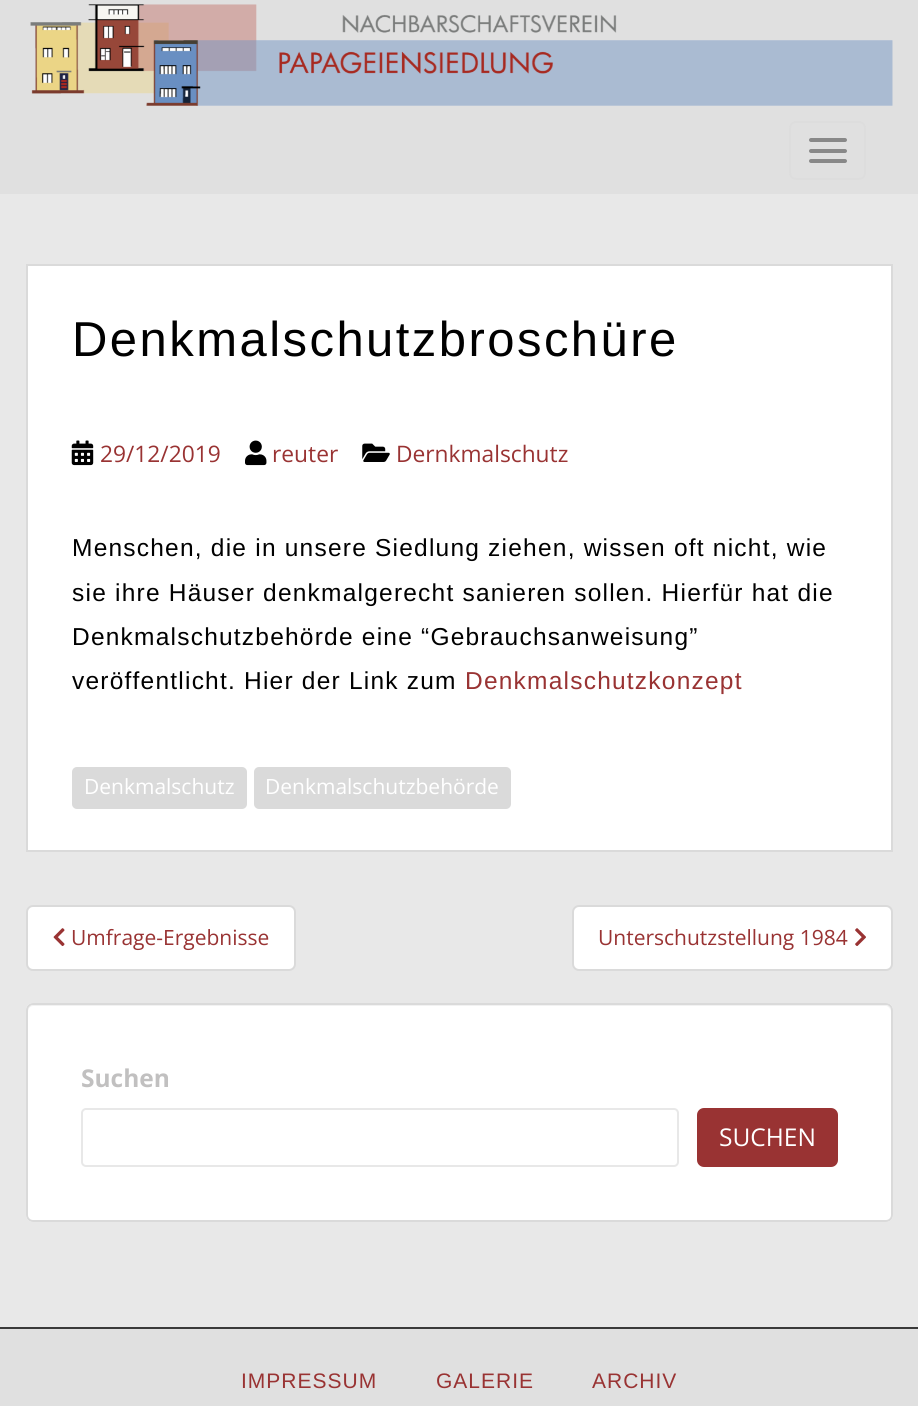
#include <cairo.h>
#include <math.h>
#include <stddef.h>

static cairo_t *ctx;

static void use_color(int r, int g, int b) {
    cairo_set_source_rgb(ctx, r / 255.0, g / 255.0, b / 255.0);
}

static void spaced_text(double x, double y, const char *s, double letter, double word) {
    cairo_move_to(ctx, x, y);
    while (*s) {
        char ch[5] = {0};
        int n = 0;
        do ch[n++] = *s++; while ((*s & 0xC0) == 0x80);
        cairo_show_text(ctx, ch);
        cairo_rel_move_to(ctx, letter + word * (*ch == ' '), 0);
    }
}

static void round_rect(double x, double y, double w, double h, double r) {
    cairo_new_sub_path(ctx);
    cairo_arc(ctx, x + w - r, y + h - r, r, 0, M_PI / 2);
    cairo_arc(ctx, x + r, y + h - r, r, M_PI / 2, M_PI);
    cairo_arc(ctx, x + r, y + r, r, M_PI, 1.5 * M_PI);
    cairo_arc(ctx, x + w - r, y + r, r, 1.5 * M_PI, 2 * M_PI);
    cairo_close_path(ctx);
}

static void picture(const char *path, double x, double y, double w, double h) {
    cairo_surface_t *image = cairo_image_surface_create_from_png(path);
    cairo_save(ctx);
    cairo_set_source_surface(ctx, image, x, y);
    cairo_rectangle(ctx, x, y, w, h);
    cairo_fill(ctx);
    cairo_restore(ctx);
    cairo_surface_destroy(image);
}

int main(void) {
    cairo_surface_t *surface = cairo_image_surface_create(CAIRO_FORMAT_RGB24, 918, 1406);
    ctx = cairo_create(surface);
    cairo_font_options_t *options = cairo_font_options_create();
    cairo_font_options_set_hint_metrics(options, CAIRO_HINT_METRICS_OFF);
    cairo_font_options_set_hint_style(options, CAIRO_HINT_STYLE_NONE);
    cairo_set_font_options(ctx, options);
    cairo_set_miter_limit(ctx, 4);
    use_color(232, 232, 232);
    cairo_paint(ctx);
    use_color(224, 224, 224);
    cairo_rectangle(ctx, 0, 0, 918, 194);
    cairo_fill(ctx);
    picture("img1.png", 30, 4, 863, 102);
    round_rect(790, 122, 75, 57, 6);
    use_color(221, 221, 221);
    cairo_stroke(ctx);
    use_color(136, 136, 136);
    round_rect(809, 138, 38, 4, 2);
    cairo_fill(ctx);
    round_rect(809, 149, 38, 4, 2);
    cairo_fill(ctx);
    round_rect(809, 159, 38, 4, 2);
    cairo_fill(ctx);
    use_color(255, 255, 255);
    cairo_rectangle(ctx, 27, 265, 865, 586);
    cairo_fill_preserve(ctx);
    use_color(218, 218, 218);
    cairo_stroke(ctx);
    cairo_select_font_face(ctx, "Liberation Sans", CAIRO_FONT_SLANT_NORMAL, CAIRO_FONT_WEIGHT_NORMAL);
    cairo_set_font_size(ctx, 49);
    use_color(0, 0, 0);
    spaced_text(72, 356, "Denkmalschutzbroschüre", 2.45, 0);
    picture("img2.png", 71, 440, 23, 26);
    cairo_select_font_face(ctx, "Open Sans", CAIRO_FONT_SLANT_NORMAL, CAIRO_FONT_WEIGHT_NORMAL);
    cairo_set_font_size(ctx, 22.75);
    use_color(153, 51, 51);
    cairo_move_to(ctx, 100, 462);
    cairo_show_text(ctx, "29/12/2019");
    picture("img3.png", 245, 440, 22, 26);
    cairo_move_to(ctx, 272, 462);
    cairo_show_text(ctx, "reuter");
    picture("img4.png", 362, 443, 28, 19);
    cairo_move_to(ctx, 396, 462);
    cairo_show_text(ctx, "Dernkmalschutz");
    cairo_select_font_face(ctx, "Liberation Sans", CAIRO_FONT_SLANT_NORMAL, CAIRO_FONT_WEIGHT_NORMAL);
    cairo_set_font_size(ctx, 24.5);
    use_color(0, 0, 0);
    spaced_text(72, 556, "Menschen, die in unsere Siedlung ziehen, wissen oft nicht, wie", 1.22, 0);
    spaced_text(72, 601, "sie ihre Häuser denkmalgerecht sanieren sollen. Hierfür hat die", 1.22, 0);
    spaced_text(72, 645, "Denkmalschutzbehörde eine “Gebrauchsanweisung”", 1.22, 0);
    spaced_text(72, 689, "veröffentlicht. Hier der Link zum", 1.22, 0);
    use_color(153, 51, 51);
    spaced_text(465, 689, "Denkmalschutzkonzept", 1.22, 0);
    use_color(218, 218, 218);
    round_rect(72, 767, 175, 42, 5);
    cairo_fill(ctx);
    cairo_select_font_face(ctx, "Open Sans", CAIRO_FONT_SLANT_NORMAL, CAIRO_FONT_WEIGHT_NORMAL);
    cairo_set_font_size(ctx, 21);
    use_color(255, 255, 255);
    cairo_move_to(ctx, 84, 794);
    cairo_show_text(ctx, "Denkmalschutz");
    use_color(218, 218, 218);
    round_rect(254, 767, 257, 42, 5);
    cairo_fill(ctx);
    use_color(255, 255, 255);
    cairo_move_to(ctx, 265, 794);
    cairo_show_text(ctx, "Denkmalschutzbehörde");
    round_rect(27, 906, 268, 64, 6);
    cairo_fill_preserve(ctx);
    use_color(218, 218, 218);
    cairo_stroke(ctx);
    picture("img5.png", 53, 928, 12, 19);
    use_color(153, 51, 51);
    cairo_move_to(ctx, 71, 945);
    cairo_show_text(ctx, "Umfrage-Ergebnisse");
    use_color(255, 255, 255);
    round_rect(573, 906, 319, 64, 6);
    cairo_fill_preserve(ctx);
    use_color(218, 218, 218);
    cairo_stroke(ctx);
    use_color(153, 51, 51);
    cairo_move_to(ctx, 598, 945);
    cairo_show_text(ctx, "Unterschutzstellung 1984");
    picture("img6.png", 855, 928, 11, 18);
    use_color(255, 255, 255);
    round_rect(26, 1003, 867, 219, 7);
    cairo_fill(ctx);
    use_color(242, 242, 242);
    cairo_new_path(ctx);
    cairo_move_to(ctx, 33, 1006);
    cairo_line_to(ctx, 886, 1006);
    cairo_curve_to(ctx, 888, 1006, 891, 1009, 891, 1012);
    cairo_line_to(ctx, 891, 1010);
    cairo_curve_to(ctx, 891, 1007, 889, 1005, 886, 1005);
    cairo_line_to(ctx, 33, 1005);
    cairo_curve_to(ctx, 30, 1005, 28, 1007, 28, 1010);
    cairo_line_to(ctx, 28, 1012);
    cairo_curve_to(ctx, 28, 1009, 30, 1006, 33, 1006);
    cairo_close_path(ctx);
    cairo_fill(ctx);
    round_rect(27, 1004, 865, 217, 6);
    use_color(218, 218, 218);
    cairo_stroke(ctx);
    cairo_select_font_face(ctx, "Open Sans", CAIRO_FONT_SLANT_NORMAL, CAIRO_FONT_WEIGHT_BOLD);
    cairo_set_font_size(ctx, 24.5);
    use_color(193, 192, 192);
    cairo_move_to(ctx, 81, 1087);
    cairo_show_text(ctx, "Suchen");
    round_rect(82, 1109, 596, 57, 4);
    use_color(232, 232, 232);
    cairo_stroke(ctx);
    use_color(153, 51, 51);
    round_rect(698, 1109, 139, 57, 6);
    cairo_fill_preserve(ctx);
    cairo_stroke(ctx);
    cairo_select_font_face(ctx, "Open Sans", CAIRO_FONT_SLANT_NORMAL, CAIRO_FONT_WEIGHT_NORMAL);
    use_color(255, 255, 255);
    cairo_move_to(ctx, 719, 1146);
    cairo_show_text(ctx, "SUCHEN");
    use_color(224, 224, 224);
    cairo_rectangle(ctx, 0, 1329, 918, 77);
    cairo_fill(ctx);
    use_color(58, 58, 58);
    cairo_rectangle(ctx, 0, 1327, 918, 2);
    cairo_fill(ctx);
    cairo_select_font_face(ctx, "Liberation Sans", CAIRO_FONT_SLANT_NORMAL, CAIRO_FONT_WEIGHT_NORMAL);
    cairo_set_font_size(ctx, 21);
    use_color(153, 51, 51);
    spaced_text(241, 1388, "IMPRESSUM", 1, 0);
    spaced_text(436, 1388, "GALERIE", 1, 0);
    spaced_text(592, 1388, "ARCHIV", 1, 0);
    cairo_surface_write_to_png(surface, "result.png");
    cairo_font_options_destroy(options);
    cairo_destroy(ctx);
    cairo_surface_destroy(surface);
    return 0;
}
